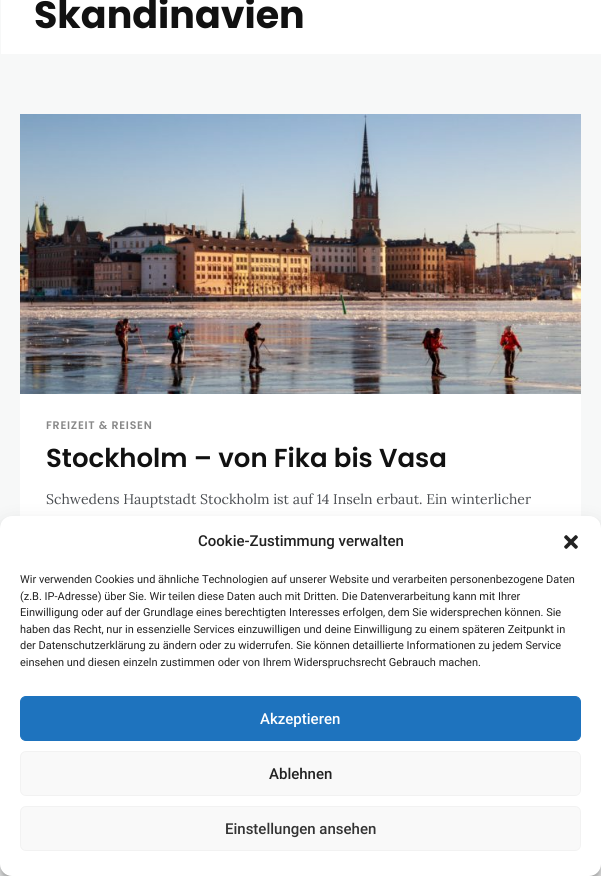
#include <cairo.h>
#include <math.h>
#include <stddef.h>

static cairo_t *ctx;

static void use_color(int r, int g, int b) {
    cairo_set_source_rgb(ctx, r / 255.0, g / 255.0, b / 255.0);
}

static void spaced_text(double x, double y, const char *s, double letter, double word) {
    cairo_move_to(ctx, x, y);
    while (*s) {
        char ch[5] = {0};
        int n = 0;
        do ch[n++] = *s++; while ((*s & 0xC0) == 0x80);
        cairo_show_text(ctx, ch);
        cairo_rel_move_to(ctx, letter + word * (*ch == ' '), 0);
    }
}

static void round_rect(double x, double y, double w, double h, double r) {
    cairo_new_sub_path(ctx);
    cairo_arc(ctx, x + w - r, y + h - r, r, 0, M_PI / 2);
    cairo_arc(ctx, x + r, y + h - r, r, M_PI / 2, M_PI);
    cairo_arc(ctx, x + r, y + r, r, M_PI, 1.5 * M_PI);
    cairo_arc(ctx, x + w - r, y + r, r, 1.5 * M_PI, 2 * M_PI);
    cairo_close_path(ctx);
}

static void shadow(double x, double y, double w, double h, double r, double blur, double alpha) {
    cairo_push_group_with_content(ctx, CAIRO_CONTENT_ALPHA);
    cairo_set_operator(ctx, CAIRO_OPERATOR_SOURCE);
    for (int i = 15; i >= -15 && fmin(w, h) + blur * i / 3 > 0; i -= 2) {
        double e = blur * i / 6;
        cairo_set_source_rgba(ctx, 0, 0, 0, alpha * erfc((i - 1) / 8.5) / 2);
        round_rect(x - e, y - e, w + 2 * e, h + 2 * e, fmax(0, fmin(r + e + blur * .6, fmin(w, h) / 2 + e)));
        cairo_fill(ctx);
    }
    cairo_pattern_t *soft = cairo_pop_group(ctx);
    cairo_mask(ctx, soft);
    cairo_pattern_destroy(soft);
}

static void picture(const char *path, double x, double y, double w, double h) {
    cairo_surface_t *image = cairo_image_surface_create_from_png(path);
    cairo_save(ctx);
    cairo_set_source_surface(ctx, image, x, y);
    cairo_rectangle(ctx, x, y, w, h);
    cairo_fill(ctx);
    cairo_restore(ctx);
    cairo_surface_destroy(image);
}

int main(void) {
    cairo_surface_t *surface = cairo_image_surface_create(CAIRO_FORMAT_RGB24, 601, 876);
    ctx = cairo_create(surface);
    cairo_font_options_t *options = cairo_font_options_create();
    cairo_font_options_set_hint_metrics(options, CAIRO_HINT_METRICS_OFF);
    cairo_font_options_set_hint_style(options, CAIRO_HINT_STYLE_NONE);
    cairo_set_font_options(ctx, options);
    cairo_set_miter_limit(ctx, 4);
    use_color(247, 248, 248);
    cairo_paint(ctx);
    use_color(255, 255, 255);
    cairo_rectangle(ctx, 1, 0, 600, 54);
    cairo_fill(ctx);
    cairo_select_font_face(ctx, "Poppins", CAIRO_FONT_SLANT_NORMAL, CAIRO_FONT_WEIGHT_BOLD);
    cairo_set_font_size(ctx, 38);
    use_color(17, 17, 17);
    cairo_move_to(ctx, 34, 28);
    cairo_show_text(ctx, "Skandinavien");
    picture("img1.png", 20, 114, 561, 280);
    use_color(255, 255, 255);
    cairo_rectangle(ctx, 20, 394, 561, 122);
    cairo_fill(ctx);
    cairo_select_font_face(ctx, "Poppins SemiBold", CAIRO_FONT_SLANT_NORMAL, CAIRO_FONT_WEIGHT_NORMAL);
    cairo_set_font_size(ctx, 11);
    use_color(136, 136, 136);
    spaced_text(46, 429, "FREIZEIT & REISEN", 0.75, 0);
    cairo_set_font_size(ctx, 26);
    use_color(17, 17, 17);
    cairo_move_to(ctx, 46, 467);
    cairo_show_text(ctx, "Stockholm – von Fika bis Vasa");
    cairo_select_font_face(ctx, "Lora", CAIRO_FONT_SLANT_NORMAL, CAIRO_FONT_WEIGHT_NORMAL);
    cairo_set_font_size(ctx, 14);
    use_color(76, 79, 83);
    cairo_move_to(ctx, 46, 504);
    cairo_show_text(ctx, "Schwedens Hauptstadt Stockholm ist auf 14 Inseln erbaut. Ein winterlicher");
    use_color(0, 0, 0);
    shadow(0, 522, 601, 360, 12, 3, 0.23);
    shadow(0, 526, 601, 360, 12, 10, 0.19);
    use_color(255, 255, 255);
    round_rect(0, 516, 601, 360, 12);
    cairo_fill(ctx);
    cairo_select_font_face(ctx, "Roboto Medium", CAIRO_FONT_SLANT_NORMAL, CAIRO_FONT_WEIGHT_NORMAL);
    cairo_set_font_size(ctx, 15);
    use_color(34, 34, 34);
    cairo_move_to(ctx, 198, 546);
    cairo_show_text(ctx, "Cookie-Zustimmung verwalten");
    picture("img2.png", 564, 535, 14, 14);
    cairo_select_font_face(ctx, "Roboto", CAIRO_FONT_SLANT_NORMAL, CAIRO_FONT_WEIGHT_NORMAL);
    cairo_set_font_size(ctx, 11);
    cairo_move_to(ctx, 20, 583);
    cairo_show_text(ctx, "Wir verwenden Cookies und ähnliche Technologien auf unserer Website und verarbeiten personenbezogene Daten");
    cairo_move_to(ctx, 20, 600);
    cairo_show_text(ctx, "(z.B. IP-Adresse) über Sie. Wir teilen diese Daten auch mit Dritten. Die Datenverarbeitung kann mit Ihrer");
    cairo_move_to(ctx, 20, 616);
    cairo_show_text(ctx, "Einwilligung oder auf der Grundlage eines berechtigten Interesses erfolgen, dem Sie widersprechen können. Sie");
    cairo_move_to(ctx, 20, 633);
    cairo_show_text(ctx, "haben das Recht, nur in essenzielle Services einzuwilligen und deine Einwilligung zu einem späteren Zeitpunkt in");
    cairo_move_to(ctx, 20, 649);
    cairo_show_text(ctx, "der Datenschutzerklärung zu ändern oder zu widerrufen. Sie können detaillierte Informationen zu jedem Service");
    cairo_move_to(ctx, 20, 666);
    cairo_show_text(ctx, "einsehen und diesen einzeln zustimmen oder von Ihrem Widerspruchsrecht Gebrauch machen.");
    use_color(30, 115, 190);
    round_rect(20.5, 696.5, 560, 44, 5.5);
    cairo_fill_preserve(ctx);
    cairo_set_line_width(ctx, 1);
    cairo_stroke(ctx);
    cairo_select_font_face(ctx, "Roboto Medium", CAIRO_FONT_SLANT_NORMAL, CAIRO_FONT_WEIGHT_NORMAL);
    cairo_set_font_size(ctx, 15);
    use_color(255, 255, 255);
    cairo_move_to(ctx, 260, 724);
    cairo_show_text(ctx, "Akzeptieren");
    use_color(249, 249, 249);
    round_rect(20.5, 751.5, 560, 44, 5.5);
    cairo_fill_preserve(ctx);
    use_color(242, 242, 242);
    cairo_stroke(ctx);
    use_color(34, 34, 34);
    cairo_move_to(ctx, 269, 779);
    cairo_show_text(ctx, "Ablehnen");
    use_color(249, 249, 249);
    round_rect(20.5, 806.5, 560, 44, 5.5);
    cairo_fill_preserve(ctx);
    use_color(242, 242, 242);
    cairo_stroke(ctx);
    use_color(51, 51, 51);
    cairo_move_to(ctx, 225, 834);
    cairo_show_text(ctx, "Einstellungen ansehen");
    cairo_surface_write_to_png(surface, "result.png");
    cairo_font_options_destroy(options);
    cairo_destroy(ctx);
    cairo_surface_destroy(surface);
    return 0;
}
